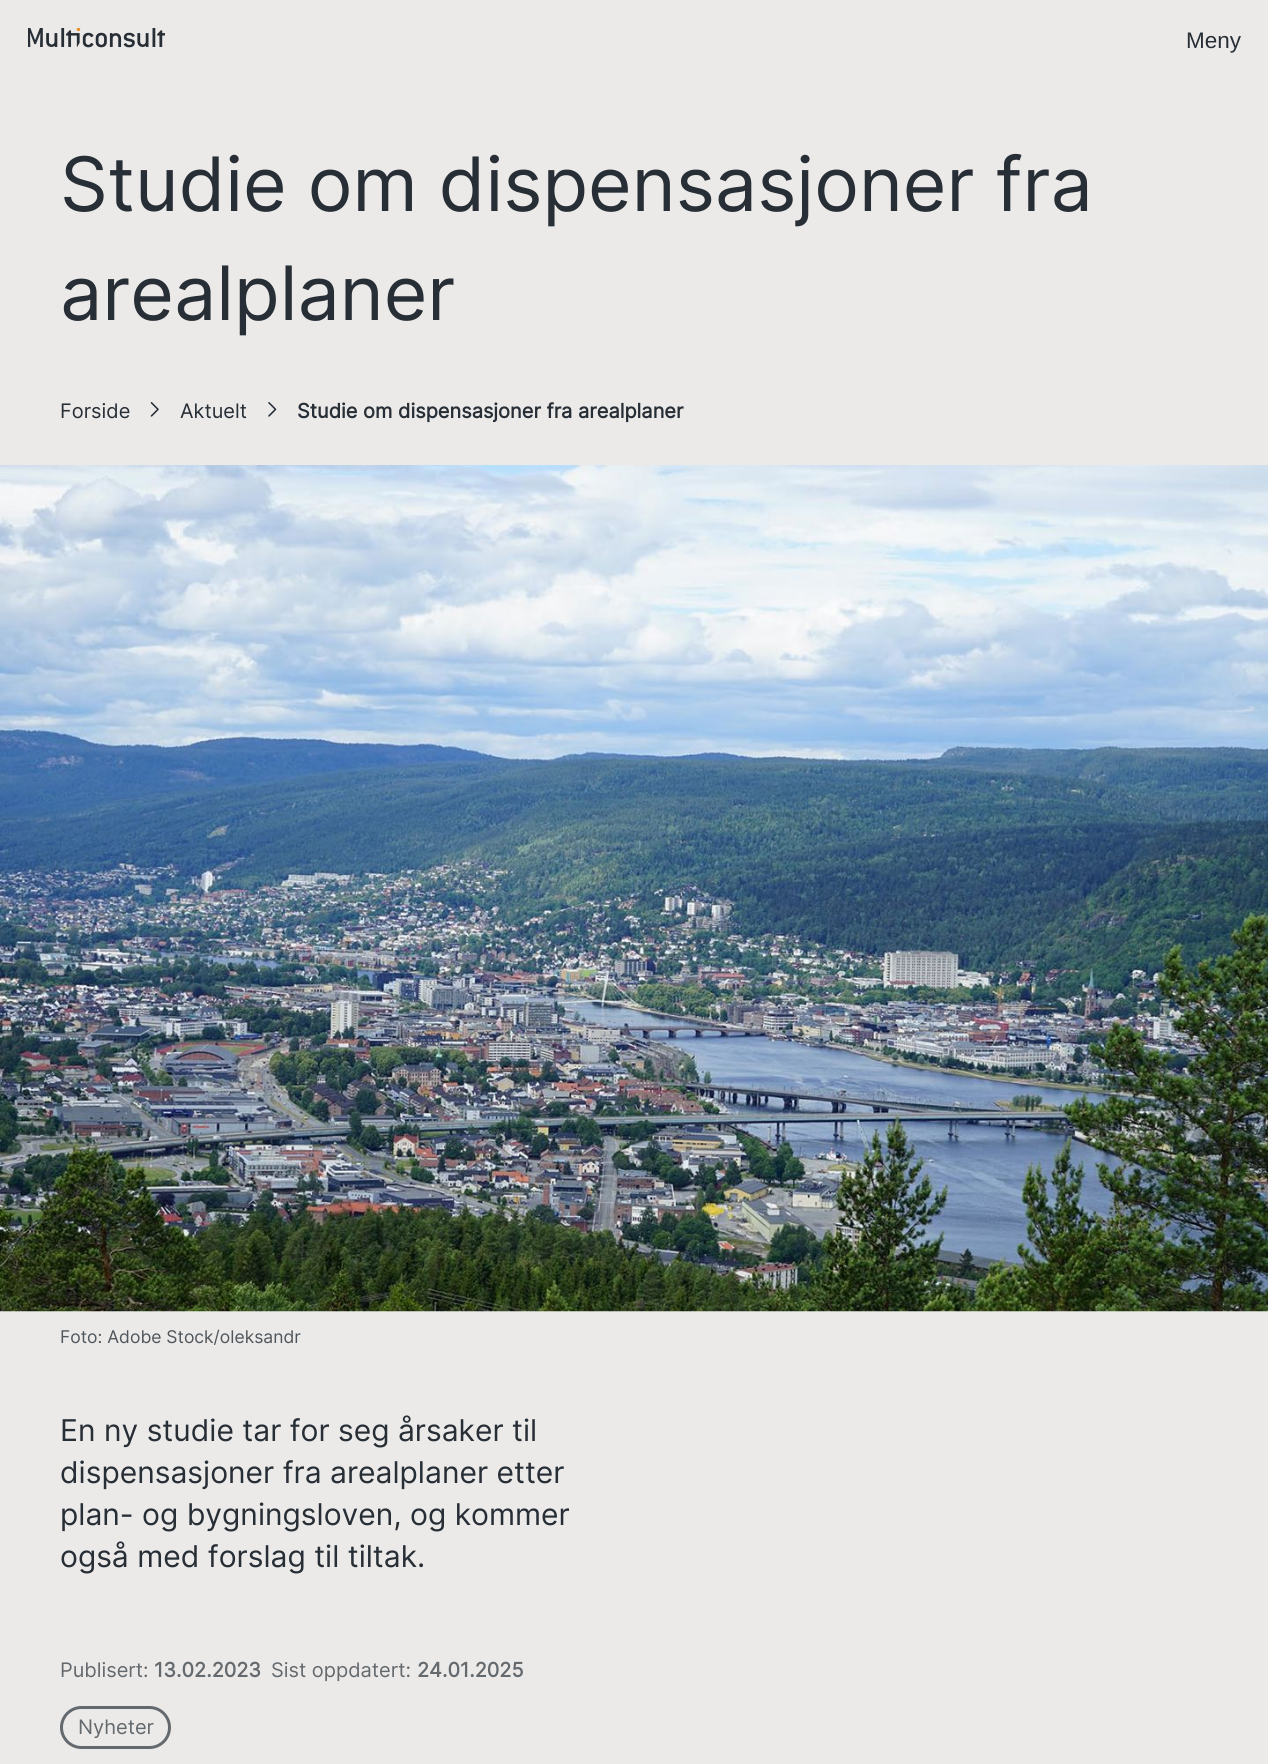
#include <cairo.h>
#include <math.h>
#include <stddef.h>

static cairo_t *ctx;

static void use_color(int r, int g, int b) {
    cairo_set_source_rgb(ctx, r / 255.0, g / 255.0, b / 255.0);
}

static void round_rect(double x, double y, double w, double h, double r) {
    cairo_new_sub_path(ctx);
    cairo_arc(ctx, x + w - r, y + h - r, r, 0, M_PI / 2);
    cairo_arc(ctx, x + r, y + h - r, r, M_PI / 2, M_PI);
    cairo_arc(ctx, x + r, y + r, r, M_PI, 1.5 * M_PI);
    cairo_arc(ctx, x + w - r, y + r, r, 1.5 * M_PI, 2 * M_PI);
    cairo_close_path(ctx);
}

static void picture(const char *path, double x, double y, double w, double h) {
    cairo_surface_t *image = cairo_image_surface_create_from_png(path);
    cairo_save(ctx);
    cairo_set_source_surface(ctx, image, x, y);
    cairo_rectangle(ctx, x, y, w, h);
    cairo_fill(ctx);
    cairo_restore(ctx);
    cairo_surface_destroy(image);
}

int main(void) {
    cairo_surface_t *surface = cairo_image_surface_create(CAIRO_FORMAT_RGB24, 1268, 1764);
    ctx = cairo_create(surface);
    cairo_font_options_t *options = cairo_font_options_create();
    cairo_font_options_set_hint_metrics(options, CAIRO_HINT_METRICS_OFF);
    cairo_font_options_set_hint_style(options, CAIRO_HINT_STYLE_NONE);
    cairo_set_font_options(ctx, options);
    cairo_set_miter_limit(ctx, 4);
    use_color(235, 234, 233);
    cairo_paint(ctx);
    picture("img1.png", 28, 28, 137, 20);
    cairo_select_font_face(ctx, "Liberation Sans", CAIRO_FONT_SLANT_NORMAL, CAIRO_FONT_WEIGHT_NORMAL);
    cairo_set_font_size(ctx, 22.5);
    use_color(39, 46, 53);
    cairo_move_to(ctx, 1186, 48);
    cairo_show_text(ctx, "Meny");
    cairo_select_font_face(ctx, "Inter", CAIRO_FONT_SLANT_NORMAL, CAIRO_FONT_WEIGHT_NORMAL);
    cairo_set_font_size(ctx, 75);
    cairo_move_to(ctx, 60, 211);
    cairo_show_text(ctx, "Studie om dispensasjoner fra");
    cairo_move_to(ctx, 60, 320);
    cairo_show_text(ctx, "arealplaner");
    cairo_set_font_size(ctx, 20);
    cairo_move_to(ctx, 60, 418);
    cairo_show_text(ctx, "Forside");
    picture("img2.png", 150, 402, 9, 15);
    cairo_move_to(ctx, 180, 418);
    cairo_show_text(ctx, "Aktuelt");
    picture("img3.png", 268, 402, 9, 15);
    cairo_select_font_face(ctx, "Inter", CAIRO_FONT_SLANT_NORMAL, CAIRO_FONT_WEIGHT_BOLD);
    cairo_move_to(ctx, 297, 418);
    cairo_show_text(ctx, "Studie om dispensasjoner fra arealplaner");
    picture("img4.png", 0, 465, 1268, 847);
    cairo_select_font_face(ctx, "Inter", CAIRO_FONT_SLANT_NORMAL, CAIRO_FONT_WEIGHT_NORMAL);
    cairo_set_font_size(ctx, 17.5);
    use_color(80, 86, 91);
    cairo_move_to(ctx, 60, 1343);
    cairo_show_text(ctx, "Foto: Adobe Stock/oleksandr");
    cairo_set_font_size(ctx, 30);
    use_color(39, 46, 53);
    cairo_move_to(ctx, 60, 1441);
    cairo_show_text(ctx, "En ny studie tar for seg årsaker til");
    cairo_move_to(ctx, 60, 1483);
    cairo_show_text(ctx, "dispensasjoner fra arealplaner etter");
    cairo_move_to(ctx, 60, 1525);
    cairo_show_text(ctx, "plan- og bygningsloven, og kommer");
    cairo_move_to(ctx, 60, 1567);
    cairo_show_text(ctx, "også med forslag til tiltak.");
    cairo_set_font_size(ctx, 20);
    use_color(100, 105, 110);
    cairo_move_to(ctx, 60, 1677);
    cairo_show_text(ctx, "Publisert:");
    cairo_select_font_face(ctx, "Inter", CAIRO_FONT_SLANT_NORMAL, CAIRO_FONT_WEIGHT_BOLD);
    cairo_move_to(ctx, 154, 1677);
    cairo_show_text(ctx, "13.02.2023");
    cairo_select_font_face(ctx, "Inter", CAIRO_FONT_SLANT_NORMAL, CAIRO_FONT_WEIGHT_NORMAL);
    cairo_move_to(ctx, 271, 1677);
    cairo_show_text(ctx, "Sist oppdatert:");
    cairo_select_font_face(ctx, "Inter", CAIRO_FONT_SLANT_NORMAL, CAIRO_FONT_WEIGHT_BOLD);
    cairo_move_to(ctx, 417, 1677);
    cairo_show_text(ctx, "24.01.2025");
    round_rect(61.5, 1707.5, 108, 40, 20);
    cairo_set_line_width(ctx, 3);
    cairo_stroke(ctx);
    cairo_select_font_face(ctx, "Inter", CAIRO_FONT_SLANT_NORMAL, CAIRO_FONT_WEIGHT_NORMAL);
    cairo_move_to(ctx, 78, 1734);
    cairo_show_text(ctx, "Nyheter");
    cairo_surface_write_to_png(surface, "result.png");
    cairo_font_options_destroy(options);
    cairo_destroy(ctx);
    cairo_surface_destroy(surface);
    return 0;
}
